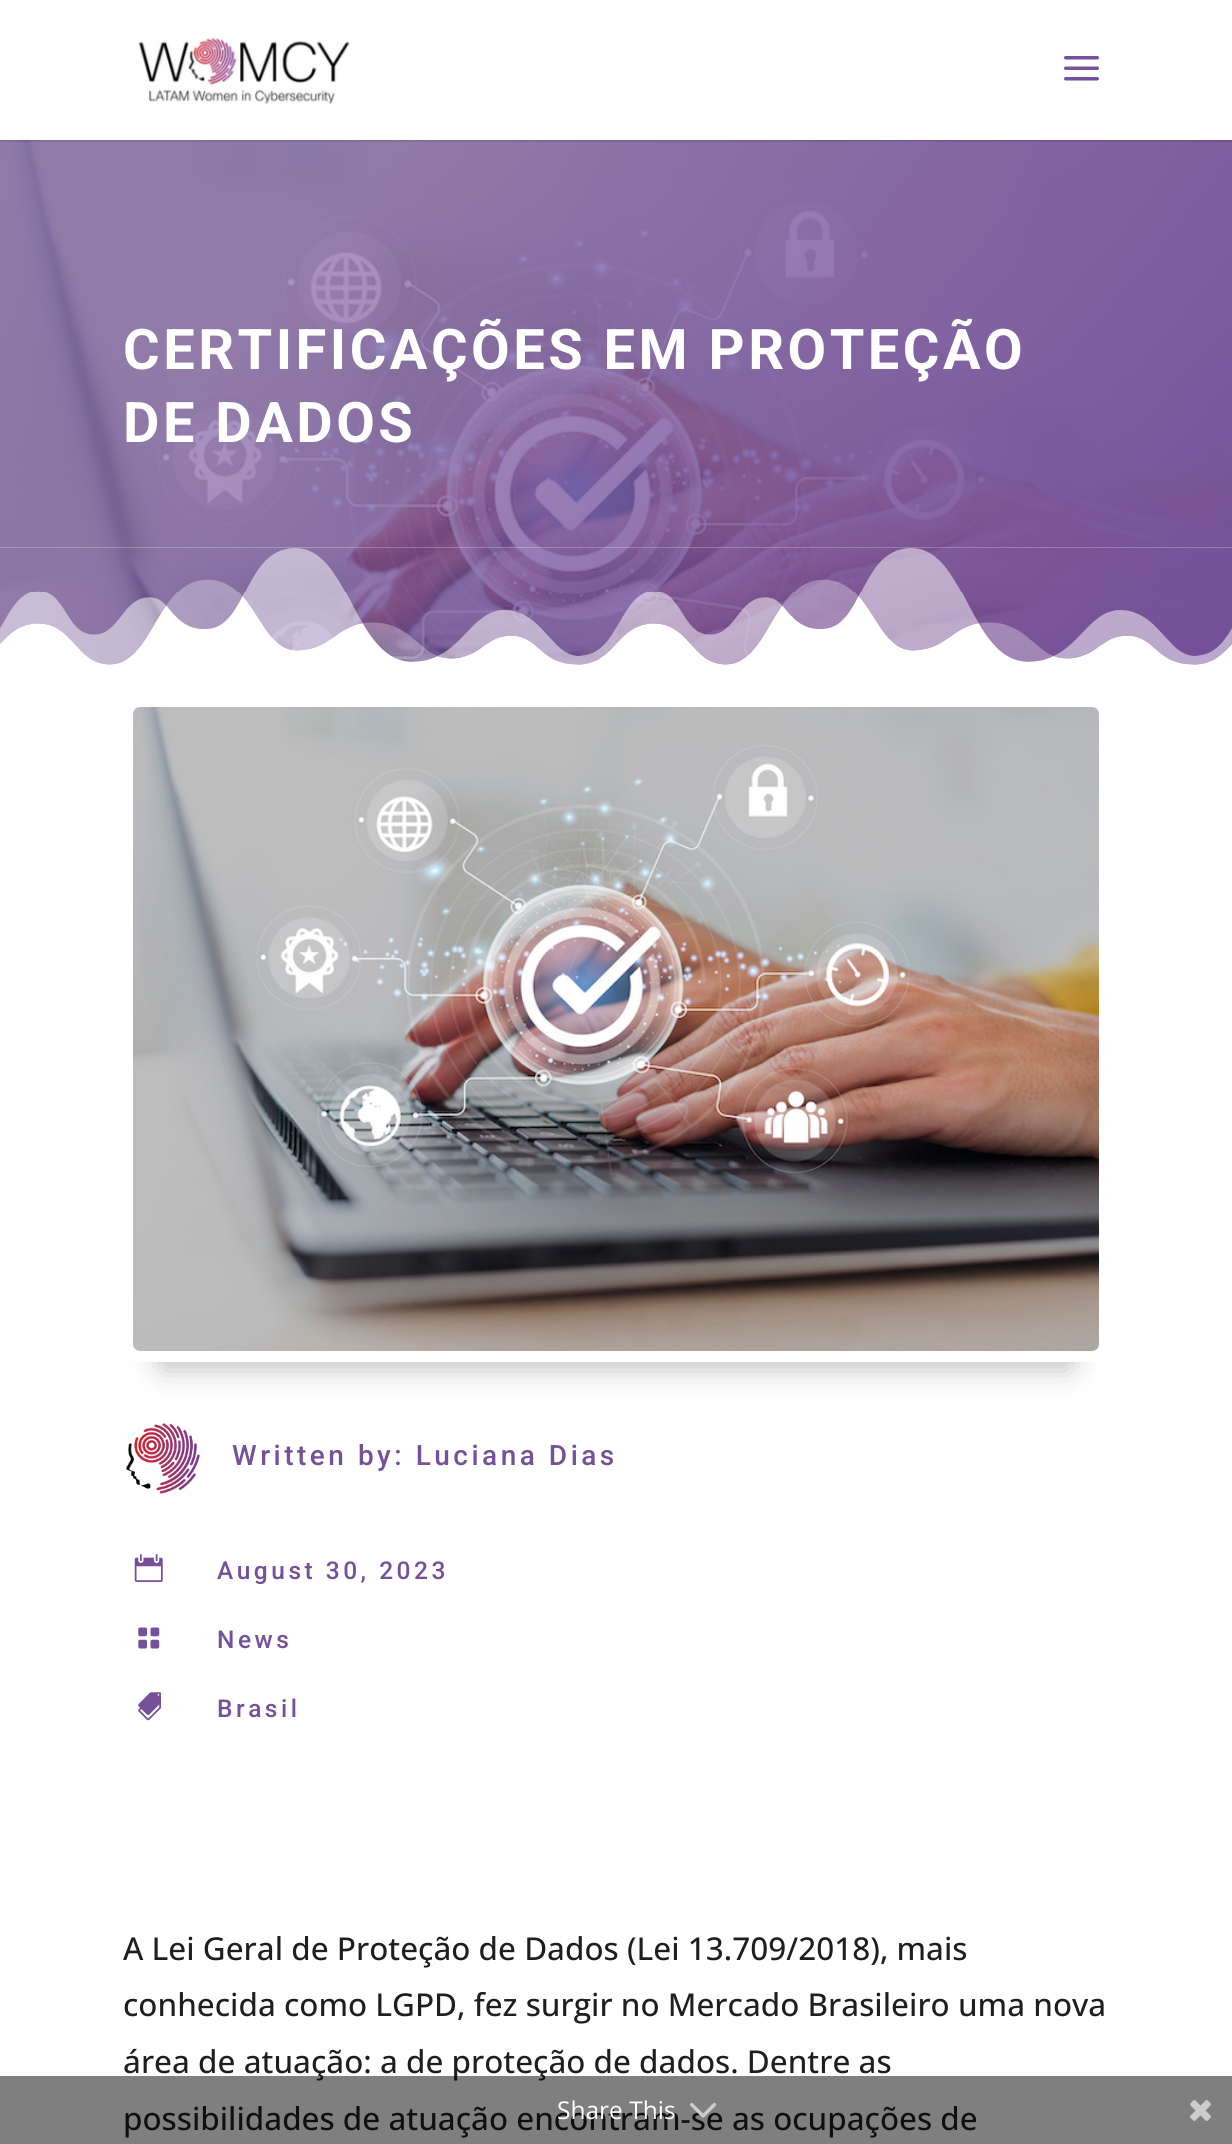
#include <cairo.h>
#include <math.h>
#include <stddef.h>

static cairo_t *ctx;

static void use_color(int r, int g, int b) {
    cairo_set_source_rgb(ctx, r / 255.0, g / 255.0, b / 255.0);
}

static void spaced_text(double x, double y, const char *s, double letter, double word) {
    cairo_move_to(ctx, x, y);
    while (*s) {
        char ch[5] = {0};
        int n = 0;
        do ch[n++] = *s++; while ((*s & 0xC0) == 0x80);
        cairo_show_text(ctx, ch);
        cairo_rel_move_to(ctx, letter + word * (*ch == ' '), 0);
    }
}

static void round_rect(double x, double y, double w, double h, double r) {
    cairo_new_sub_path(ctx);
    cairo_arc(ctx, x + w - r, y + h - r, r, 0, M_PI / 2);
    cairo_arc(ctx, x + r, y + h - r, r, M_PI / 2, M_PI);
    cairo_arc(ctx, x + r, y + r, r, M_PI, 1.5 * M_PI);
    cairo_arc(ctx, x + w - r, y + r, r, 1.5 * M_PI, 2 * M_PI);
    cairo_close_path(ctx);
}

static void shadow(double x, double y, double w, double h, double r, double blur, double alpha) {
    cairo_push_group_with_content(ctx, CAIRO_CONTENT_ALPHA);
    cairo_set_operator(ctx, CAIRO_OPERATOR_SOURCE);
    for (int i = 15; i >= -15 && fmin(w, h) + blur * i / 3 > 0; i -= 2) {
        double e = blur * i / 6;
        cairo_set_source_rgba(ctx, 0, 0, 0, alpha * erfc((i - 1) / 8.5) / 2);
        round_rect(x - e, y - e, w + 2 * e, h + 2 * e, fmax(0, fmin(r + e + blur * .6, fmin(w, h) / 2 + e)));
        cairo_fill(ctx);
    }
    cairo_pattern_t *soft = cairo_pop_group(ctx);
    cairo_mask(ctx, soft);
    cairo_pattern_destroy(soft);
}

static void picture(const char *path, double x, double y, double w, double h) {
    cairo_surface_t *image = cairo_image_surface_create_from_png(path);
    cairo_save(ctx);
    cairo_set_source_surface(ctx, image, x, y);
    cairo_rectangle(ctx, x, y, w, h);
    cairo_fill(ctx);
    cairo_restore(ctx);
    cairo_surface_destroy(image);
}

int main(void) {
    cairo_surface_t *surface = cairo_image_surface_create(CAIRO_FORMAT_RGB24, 1232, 2144);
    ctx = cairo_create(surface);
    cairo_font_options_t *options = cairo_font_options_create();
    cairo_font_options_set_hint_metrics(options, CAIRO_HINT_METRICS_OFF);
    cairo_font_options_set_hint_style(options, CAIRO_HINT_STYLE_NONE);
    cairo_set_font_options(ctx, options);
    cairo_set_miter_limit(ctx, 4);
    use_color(255, 255, 255);
    cairo_paint(ctx);
    picture("img3.png", 0, 140, 1232, 525);
    cairo_set_source_rgba(ctx, 0, 0, 0, 0.1);
    cairo_rectangle(ctx, 0, 140, 1232, 2);
    cairo_fill(ctx);
    picture("img1.png", 138, 37, 212, 68);
    picture("img2.png", 1064, 56, 35, 25);
    cairo_select_font_face(ctx, "Roboto", CAIRO_FONT_SLANT_NORMAL, CAIRO_FONT_WEIGHT_BOLD);
    cairo_set_font_size(ctx, 56);
    use_color(255, 255, 255);
    spaced_text(123, 369, "CERTIFICAÇÕES EM PROTEÇÃO", 3.5, 0);
    spaced_text(123, 442, "DE DADOS", 3.5, 0);
    picture("img4.png", 0, 547, 1232, 132);
    use_color(0, 0, 0);
    shadow(163, 781, 906, 584, 0, 16, 0.3);
    round_rect(128.5, 702.5, 976, 654, 12.5);
    use_color(255, 255, 255);
    cairo_set_line_width(ctx, 11);
    cairo_stroke(ctx);
    picture("img5.png", 133, 707, 966, 644);
    picture("img6.png", 126, 1423, 74, 71);
    cairo_select_font_face(ctx, "Roboto Medium", CAIRO_FONT_SLANT_NORMAL, CAIRO_FONT_WEIGHT_NORMAL);
    cairo_set_font_size(ctx, 28);
    use_color(117, 80, 155);
    spaced_text(232, 1465, "Written by: Luciana Dias", 3.5, 0);
    picture("img7.png", 134, 1554, 29, 28);
    cairo_set_font_size(ctx, 24.5);
    spaced_text(217, 1579, "August 30, 2023", 3.5, 0);
    picture("img8.png", 138, 1627, 22, 22);
    spaced_text(217, 1648, "News", 3.5, 0);
    picture("img9.png", 138, 1692, 23, 29);
    spaced_text(217, 1717, "Brasil", 3.5, 0);
    cairo_select_font_face(ctx, "Open Sans Medium", CAIRO_FONT_SLANT_NORMAL, CAIRO_FONT_WEIGHT_NORMAL);
    cairo_set_font_size(ctx, 31.5);
    use_color(30, 30, 30);
    cairo_move_to(ctx, 123, 1960);
    cairo_show_text(ctx, "A Lei Geral de Proteção de Dados (Lei 13.709/2018), mais");
    cairo_move_to(ctx, 123, 2016);
    cairo_show_text(ctx, "conhecida como LGPD, fez surgir no Mercado Brasileiro uma nova");
    cairo_move_to(ctx, 123, 2073);
    cairo_show_text(ctx, "área de atuação: a de proteção de dados. Dentre as");
    cairo_move_to(ctx, 123, 2130);
    cairo_show_text(ctx, "possibilidades de atuação encontram-se as ocupações de");
    cairo_set_source_rgba(ctx, 0, 0, 0, 0.5);
    cairo_rectangle(ctx, 0, 2076, 1232, 68);
    cairo_fill(ctx);
    cairo_select_font_face(ctx, "Open Sans", CAIRO_FONT_SLANT_NORMAL, CAIRO_FONT_WEIGHT_NORMAL);
    cairo_set_font_size(ctx, 24.5);
    use_color(255, 255, 255);
    cairo_move_to(ctx, 557, 2119);
    cairo_show_text(ctx, "Share This");
    picture("img10.png", 690, 2102, 27, 16);
    picture("img11.png", 1190, 2100, 21, 21);
    cairo_surface_write_to_png(surface, "result.png");
    cairo_font_options_destroy(options);
    cairo_destroy(ctx);
    cairo_surface_destroy(surface);
    return 0;
}
